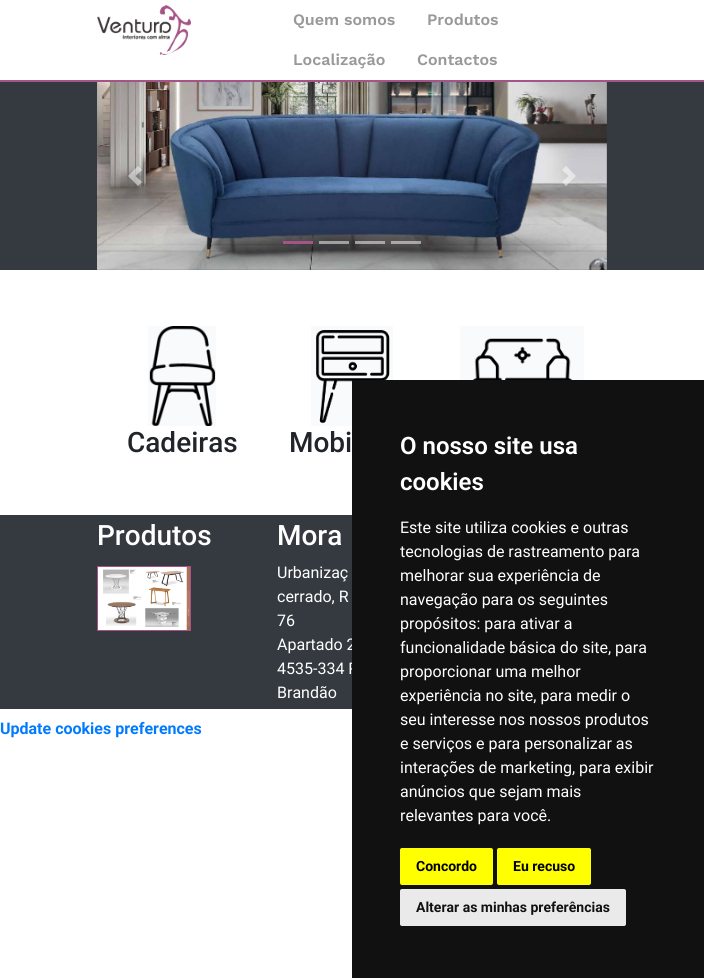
#include <cairo.h>
#include <math.h>
#include <stddef.h>

static cairo_t *ctx;

static void use_color(int r, int g, int b) {
    cairo_set_source_rgb(ctx, r / 255.0, g / 255.0, b / 255.0);
}

static void round_rect(double x, double y, double w, double h, double r) {
    cairo_new_sub_path(ctx);
    cairo_arc(ctx, x + w - r, y + h - r, r, 0, M_PI / 2);
    cairo_arc(ctx, x + r, y + h - r, r, M_PI / 2, M_PI);
    cairo_arc(ctx, x + r, y + r, r, M_PI, 1.5 * M_PI);
    cairo_arc(ctx, x + w - r, y + r, r, 1.5 * M_PI, 2 * M_PI);
    cairo_close_path(ctx);
}

static void picture(const char *path, double x, double y, double w, double h) {
    cairo_surface_t *image = cairo_image_surface_create_from_png(path);
    cairo_save(ctx);
    cairo_set_source_surface(ctx, image, x, y);
    cairo_rectangle(ctx, x, y, w, h);
    cairo_fill(ctx);
    cairo_restore(ctx);
    cairo_surface_destroy(image);
}

int main(void) {
    cairo_surface_t *surface = cairo_image_surface_create(CAIRO_FORMAT_RGB24, 704, 978);
    ctx = cairo_create(surface);
    cairo_font_options_t *options = cairo_font_options_create();
    cairo_font_options_set_hint_metrics(options, CAIRO_HINT_METRICS_OFF);
    cairo_font_options_set_hint_style(options, CAIRO_HINT_STYLE_NONE);
    cairo_set_font_options(ctx, options);
    cairo_set_miter_limit(ctx, 4);
    use_color(255, 255, 255);
    cairo_paint(ctx);
    picture("img1.png", 97, 5, 94, 50);
    cairo_select_font_face(ctx, "Work Sans SemiBold", CAIRO_FONT_SLANT_NORMAL, CAIRO_FONT_WEIGHT_NORMAL);
    cairo_set_font_size(ctx, 16);
    use_color(153, 153, 153);
    cairo_move_to(ctx, 293, 25);
    cairo_show_text(ctx, "Quem somos");
    cairo_move_to(ctx, 427, 25);
    cairo_show_text(ctx, "Produtos");
    cairo_move_to(ctx, 293, 65);
    cairo_show_text(ctx, "Localização");
    cairo_move_to(ctx, 417, 65);
    cairo_show_text(ctx, "Contactos");
    use_color(165, 84, 135);
    cairo_rectangle(ctx, 0, 80, 704, 2);
    cairo_fill(ctx);
    use_color(52, 58, 64);
    cairo_rectangle(ctx, 0, 82, 704, 188);
    cairo_fill(ctx);
    picture("img2.png", 97, 82, 510, 188);
    use_color(165, 84, 135);
    cairo_rectangle(ctx, 283, 241, 30, 3);
    cairo_fill(ctx);
    cairo_set_source_rgba(ctx, 1, 1, 1, 0.5);
    cairo_rectangle(ctx, 319, 241, 30, 3);
    cairo_fill(ctx);
    cairo_rectangle(ctx, 355, 241, 30, 3);
    cairo_fill(ctx);
    cairo_rectangle(ctx, 391, 241, 30, 3);
    cairo_fill(ctx);
    cairo_new_path(ctx);
    cairo_move_to(ctx, 138, 166);
    cairo_line_to(ctx, 128, 176);
    cairo_line_to(ctx, 138, 186);
    cairo_line_to(ctx, 142, 182);
    cairo_line_to(ctx, 135.5, 176);
    cairo_line_to(ctx, 142, 170);
    cairo_close_path(ctx);
    cairo_fill(ctx);
    cairo_new_path(ctx);
    cairo_move_to(ctx, 566, 166);
    cairo_line_to(ctx, 562, 170);
    cairo_line_to(ctx, 568.5, 176);
    cairo_line_to(ctx, 562, 182);
    cairo_line_to(ctx, 566, 186);
    cairo_line_to(ctx, 576, 176);
    cairo_close_path(ctx);
    cairo_fill(ctx);
    picture("img3.png", 460, 326, 124, 54);
    picture("img4.png", 148, 326, 68, 100);
    cairo_select_font_face(ctx, "Roboto Medium", CAIRO_FONT_SLANT_NORMAL, CAIRO_FONT_WEIGHT_NORMAL);
    cairo_set_font_size(ctx, 28);
    use_color(33, 37, 41);
    cairo_move_to(ctx, 127, 452);
    cairo_show_text(ctx, "Cadeiras");
    picture("img5.png", 311, 326, 82, 100);
    cairo_move_to(ctx, 289, 452);
    cairo_show_text(ctx, "Mobi");
    use_color(52, 58, 64);
    cairo_rectangle(ctx, 0, 515, 352, 194);
    cairo_fill(ctx);
    cairo_select_font_face(ctx, "Roboto", CAIRO_FONT_SLANT_NORMAL, CAIRO_FONT_WEIGHT_NORMAL);
    cairo_set_font_size(ctx, 16);
    use_color(255, 255, 255);
    cairo_move_to(ctx, 277, 650);
    cairo_show_text(ctx, "Apartado 2");
    cairo_move_to(ctx, 277, 674);
    cairo_show_text(ctx, "4535-334 P");
    use_color(17, 17, 17);
    cairo_rectangle(ctx, 352, 380, 352, 598);
    cairo_fill(ctx);
    cairo_select_font_face(ctx, "Roboto SemiBold", CAIRO_FONT_SLANT_NORMAL, CAIRO_FONT_WEIGHT_NORMAL);
    cairo_set_font_size(ctx, 24);
    use_color(255, 255, 255);
    cairo_move_to(ctx, 400, 454);
    cairo_show_text(ctx, "O nosso site usa");
    cairo_move_to(ctx, 400, 490);
    cairo_show_text(ctx, "cookies");
    cairo_select_font_face(ctx, "Roboto", CAIRO_FONT_SLANT_NORMAL, CAIRO_FONT_WEIGHT_NORMAL);
    cairo_set_font_size(ctx, 16);
    cairo_move_to(ctx, 400, 533);
    cairo_show_text(ctx, "Este site utiliza cookies e outras");
    cairo_move_to(ctx, 400, 557);
    cairo_show_text(ctx, "tecnologias de rastreamento para");
    cairo_move_to(ctx, 400, 581);
    cairo_show_text(ctx, "melhorar sua experiência de");
    cairo_move_to(ctx, 400, 605);
    cairo_show_text(ctx, "navegação para os seguintes");
    cairo_move_to(ctx, 400, 629);
    cairo_show_text(ctx, "propósitos: para ativar a");
    cairo_move_to(ctx, 400, 653);
    cairo_show_text(ctx, "funcionalidade básica do site, para");
    cairo_move_to(ctx, 400, 677);
    cairo_show_text(ctx, "proporcionar uma melhor");
    cairo_move_to(ctx, 400, 701);
    cairo_show_text(ctx, "experiência no site, para medir o");
    cairo_move_to(ctx, 400, 725);
    cairo_show_text(ctx, "seu interesse nos nossos produtos");
    cairo_move_to(ctx, 400, 749);
    cairo_show_text(ctx, "e serviços e para personalizar as");
    cairo_move_to(ctx, 400, 773);
    cairo_show_text(ctx, "interações de marketing, para exibir");
    cairo_move_to(ctx, 400, 797);
    cairo_show_text(ctx, "anúncios que sejam mais");
    cairo_move_to(ctx, 400, 821);
    cairo_show_text(ctx, "relevantes para você.");
    use_color(255, 255, 0);
    round_rect(400, 848, 93, 37, 2);
    cairo_fill(ctx);
    cairo_select_font_face(ctx, "Roboto", CAIRO_FONT_SLANT_NORMAL, CAIRO_FONT_WEIGHT_BOLD);
    cairo_set_font_size(ctx, 14);
    use_color(0, 0, 0);
    cairo_move_to(ctx, 416, 871);
    cairo_show_text(ctx, "Concordo");
    use_color(255, 255, 0);
    round_rect(497, 848, 94, 37, 2);
    cairo_fill(ctx);
    use_color(0, 0, 0);
    cairo_move_to(ctx, 513, 871);
    cairo_show_text(ctx, "Eu recuso");
    use_color(234, 234, 234);
    round_rect(400, 889, 226, 37, 2);
    cairo_fill(ctx);
    use_color(17, 17, 17);
    cairo_move_to(ctx, 416, 912);
    cairo_show_text(ctx, "Alterar as minhas preferências");
    cairo_select_font_face(ctx, "Roboto Medium", CAIRO_FONT_SLANT_NORMAL, CAIRO_FONT_WEIGHT_NORMAL);
    cairo_set_font_size(ctx, 28);
    use_color(255, 255, 255);
    cairo_move_to(ctx, 97, 545);
    cairo_show_text(ctx, "Produtos");
    cairo_rectangle(ctx, 97.5, 566.5, 93, 64);
    use_color(165, 84, 135);
    cairo_set_line_width(ctx, 1);
    cairo_stroke(ctx);
    picture("img6.png", 98, 567, 92, 63);
    use_color(255, 255, 255);
    cairo_move_to(ctx, 277, 545);
    cairo_show_text(ctx, "Mora");
    cairo_select_font_face(ctx, "Roboto", CAIRO_FONT_SLANT_NORMAL, CAIRO_FONT_WEIGHT_NORMAL);
    cairo_set_font_size(ctx, 16);
    cairo_move_to(ctx, 277, 578);
    cairo_show_text(ctx, "Urbanizaç");
    cairo_move_to(ctx, 277, 602);
    cairo_show_text(ctx, "cerrado, R");
    cairo_move_to(ctx, 277, 626);
    cairo_show_text(ctx, "76");
    cairo_move_to(ctx, 277, 698);
    cairo_show_text(ctx, "Brandão");
    cairo_select_font_face(ctx, "Roboto", CAIRO_FONT_SLANT_NORMAL, CAIRO_FONT_WEIGHT_BOLD);
    use_color(0, 123, 255);
    cairo_move_to(ctx, 0, 734);
    cairo_show_text(ctx, "Update cookies preferences");
    cairo_surface_write_to_png(surface, "result.png");
    cairo_font_options_destroy(options);
    cairo_destroy(ctx);
    cairo_surface_destroy(surface);
    return 0;
}
